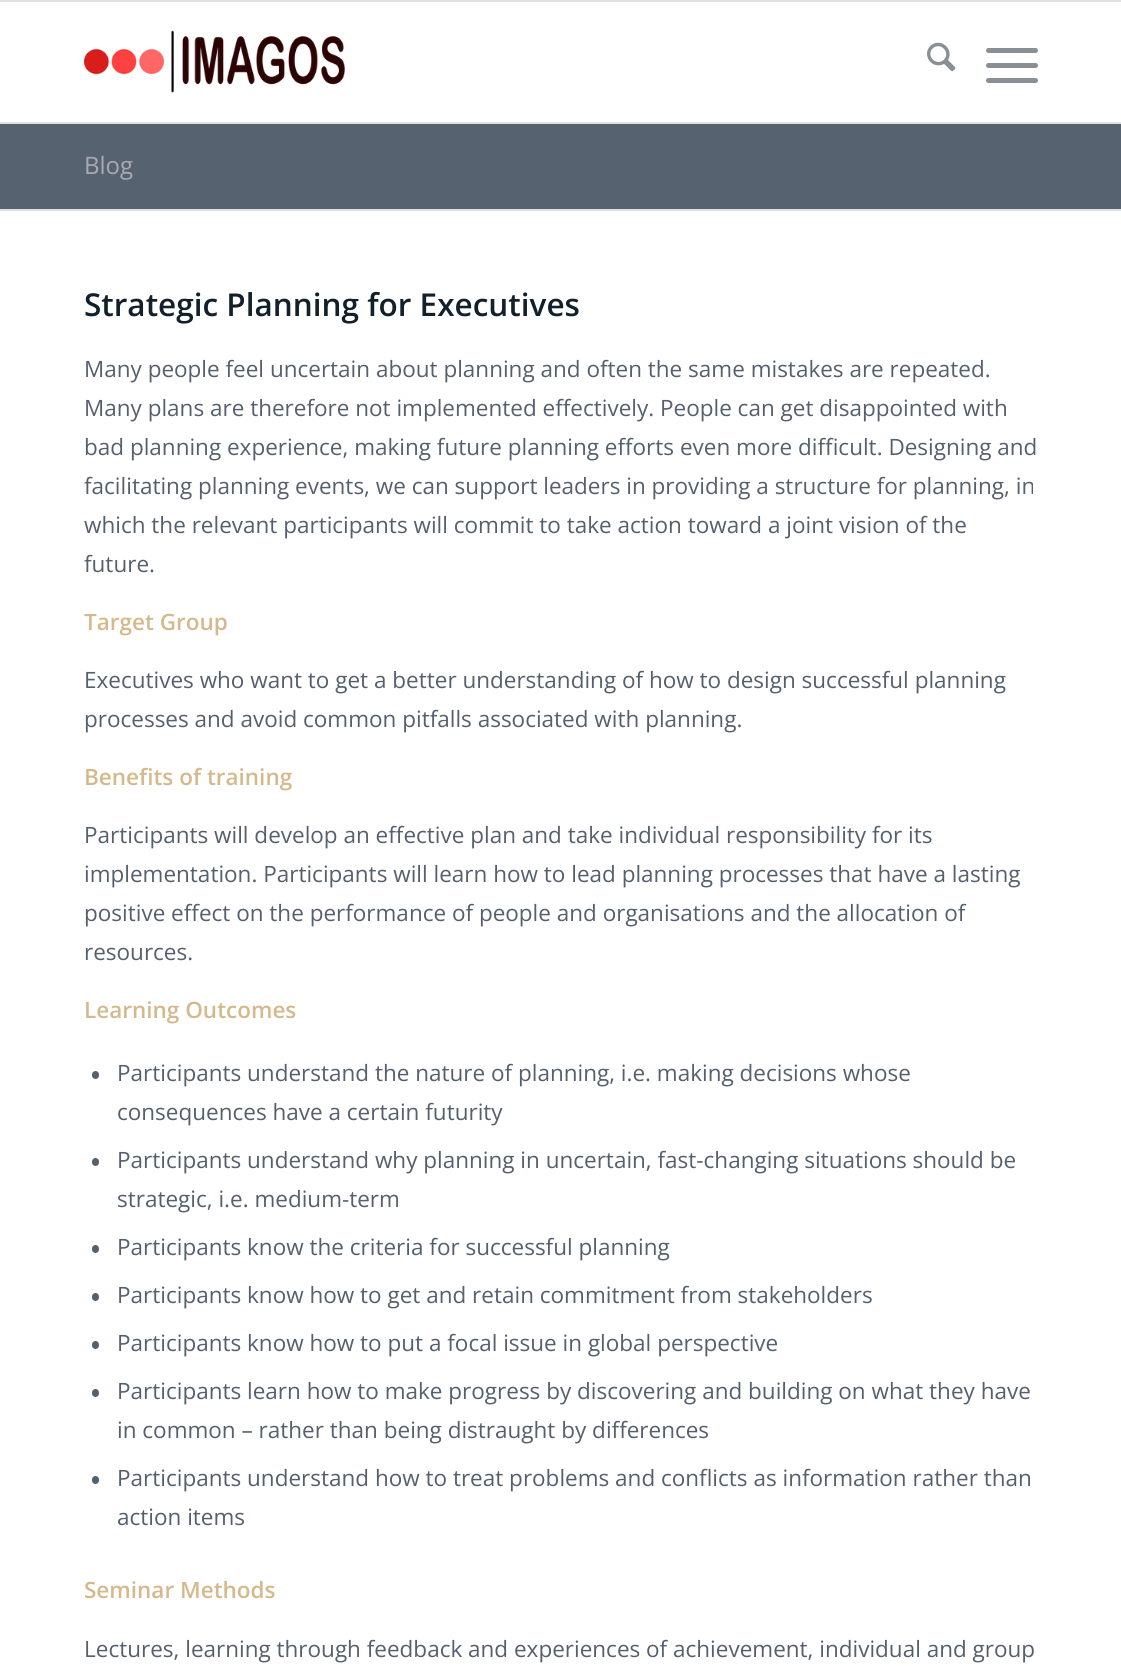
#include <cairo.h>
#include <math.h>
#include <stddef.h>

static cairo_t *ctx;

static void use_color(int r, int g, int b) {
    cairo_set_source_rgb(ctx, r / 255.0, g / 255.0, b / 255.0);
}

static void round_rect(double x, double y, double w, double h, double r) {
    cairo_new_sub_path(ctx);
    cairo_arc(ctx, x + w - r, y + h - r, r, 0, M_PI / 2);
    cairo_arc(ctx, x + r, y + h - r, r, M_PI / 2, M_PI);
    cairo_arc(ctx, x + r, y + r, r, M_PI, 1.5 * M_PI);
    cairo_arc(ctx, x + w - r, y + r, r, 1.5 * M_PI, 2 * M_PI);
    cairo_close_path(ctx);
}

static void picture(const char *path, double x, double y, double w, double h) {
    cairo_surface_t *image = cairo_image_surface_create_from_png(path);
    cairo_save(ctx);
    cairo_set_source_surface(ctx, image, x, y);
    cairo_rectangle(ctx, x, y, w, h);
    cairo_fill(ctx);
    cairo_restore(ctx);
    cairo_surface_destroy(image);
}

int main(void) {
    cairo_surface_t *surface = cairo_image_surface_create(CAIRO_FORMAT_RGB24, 1121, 1666);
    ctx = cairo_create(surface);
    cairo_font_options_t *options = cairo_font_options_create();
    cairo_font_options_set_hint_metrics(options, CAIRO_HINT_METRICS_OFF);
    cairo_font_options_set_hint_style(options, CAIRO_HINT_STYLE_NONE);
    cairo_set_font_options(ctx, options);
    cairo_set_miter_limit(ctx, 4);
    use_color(255, 255, 255);
    cairo_paint(ctx);
    use_color(225, 225, 225);
    cairo_rectangle(ctx, 0, 0, 1121, 2);
    cairo_fill(ctx);
    cairo_rectangle(ctx, 0, 122, 1121, 2);
    cairo_fill(ctx);
    picture("img1.png", 84, 30, 261, 63);
    picture("img2.png", 927, 42, 29, 30);
    use_color(136, 144, 149);
    round_rect(986, 63, 52, 5, 2.5);
    cairo_fill(ctx);
    round_rect(986, 48, 52, 5, 2.5);
    cairo_fill(ctx);
    round_rect(986, 78, 52, 5, 2.5);
    cairo_fill(ctx);
    use_color(87, 98, 112);
    cairo_rectangle(ctx, 0, 124, 1121, 85);
    cairo_fill(ctx);
    cairo_select_font_face(ctx, "Open Sans", CAIRO_FONT_SLANT_NORMAL, CAIRO_FONT_WEIGHT_NORMAL);
    cairo_set_font_size(ctx, 24);
    use_color(167, 171, 177);
    cairo_move_to(ctx, 84, 174);
    cairo_show_text(ctx, "Blog");
    use_color(225, 225, 225);
    cairo_rectangle(ctx, 0, 209, 1121, 2);
    cairo_fill(ctx);
    cairo_select_font_face(ctx, "Open Sans SemiBold", CAIRO_FONT_SLANT_NORMAL, CAIRO_FONT_WEIGHT_NORMAL);
    cairo_set_font_size(ctx, 31.5);
    use_color(17, 32, 42);
    cairo_move_to(ctx, 84, 316);
    cairo_show_text(ctx, "Strategic Planning for Executives");
    cairo_select_font_face(ctx, "Open Sans", CAIRO_FONT_SLANT_NORMAL, CAIRO_FONT_WEIGHT_NORMAL);
    cairo_set_font_size(ctx, 22.5);
    use_color(85, 96, 110);
    cairo_move_to(ctx, 84, 377);
    cairo_show_text(ctx, "Many people feel uncertain about planning and often the same mistakes are repeated.");
    cairo_move_to(ctx, 84, 416);
    cairo_show_text(ctx, "Many plans are therefore not implemented effectively. People can get disappointed with");
    cairo_move_to(ctx, 84, 455);
    cairo_show_text(ctx, "bad planning experience, making future planning efforts even more difficult. Designing and");
    cairo_move_to(ctx, 84, 494);
    cairo_show_text(ctx, "facilitating planning events, we can support leaders in providing a structure for planning, in");
    cairo_move_to(ctx, 84, 533);
    cairo_show_text(ctx, "which the relevant participants will commit to take action toward a joint vision of the");
    cairo_move_to(ctx, 84, 572);
    cairo_show_text(ctx, "future.");
    cairo_select_font_face(ctx, "Open Sans SemiBold", CAIRO_FONT_SLANT_NORMAL, CAIRO_FONT_WEIGHT_NORMAL);
    use_color(212, 185, 140);
    cairo_move_to(ctx, 84, 630);
    cairo_show_text(ctx, "Target Group");
    cairo_select_font_face(ctx, "Open Sans", CAIRO_FONT_SLANT_NORMAL, CAIRO_FONT_WEIGHT_NORMAL);
    use_color(85, 96, 110);
    cairo_move_to(ctx, 84, 688);
    cairo_show_text(ctx, "Executives who want to get a better understanding of how to design successful planning");
    cairo_move_to(ctx, 84, 727);
    cairo_show_text(ctx, "processes and avoid common pitfalls associated with planning.");
    cairo_select_font_face(ctx, "Open Sans SemiBold", CAIRO_FONT_SLANT_NORMAL, CAIRO_FONT_WEIGHT_NORMAL);
    use_color(212, 185, 140);
    cairo_move_to(ctx, 84, 785);
    cairo_show_text(ctx, "Benefits of training");
    cairo_select_font_face(ctx, "Open Sans", CAIRO_FONT_SLANT_NORMAL, CAIRO_FONT_WEIGHT_NORMAL);
    use_color(85, 96, 110);
    cairo_move_to(ctx, 84, 843);
    cairo_show_text(ctx, "Participants will develop an effective plan and take individual responsibility for its");
    cairo_move_to(ctx, 84, 882);
    cairo_show_text(ctx, "implementation. Participants will learn how to lead planning processes that have a lasting");
    cairo_move_to(ctx, 84, 921);
    cairo_show_text(ctx, "positive effect on the performance of people and organisations and the allocation of");
    cairo_move_to(ctx, 84, 960);
    cairo_show_text(ctx, "resources.");
    cairo_select_font_face(ctx, "Open Sans SemiBold", CAIRO_FONT_SLANT_NORMAL, CAIRO_FONT_WEIGHT_NORMAL);
    use_color(212, 185, 140);
    cairo_move_to(ctx, 84, 1018);
    cairo_show_text(ctx, "Learning Outcomes");
    use_color(85, 96, 110);
    round_rect(92, 1071, 7, 8, 3.5);
    cairo_fill(ctx);
    cairo_select_font_face(ctx, "Open Sans", CAIRO_FONT_SLANT_NORMAL, CAIRO_FONT_WEIGHT_NORMAL);
    cairo_move_to(ctx, 117, 1081);
    cairo_show_text(ctx, "Participants understand the nature of planning, i.e. making decisions whose");
    cairo_move_to(ctx, 117, 1120);
    cairo_show_text(ctx, "consequences have a certain futurity");
    round_rect(92, 1158, 7, 8, 3.5);
    cairo_fill(ctx);
    cairo_move_to(ctx, 117, 1168);
    cairo_show_text(ctx, "Participants understand why planning in uncertain, fast-changing situations should be");
    cairo_move_to(ctx, 117, 1207);
    cairo_show_text(ctx, "strategic, i.e. medium-term");
    round_rect(92, 1245, 7, 8, 3.5);
    cairo_fill(ctx);
    cairo_move_to(ctx, 117, 1255);
    cairo_show_text(ctx, "Participants know the criteria for successful planning");
    round_rect(92, 1293, 7, 8, 3.5);
    cairo_fill(ctx);
    cairo_move_to(ctx, 117, 1303);
    cairo_show_text(ctx, "Participants know how to get and retain commitment from stakeholders");
    round_rect(92, 1341, 7, 8, 3.5);
    cairo_fill(ctx);
    cairo_move_to(ctx, 117, 1351);
    cairo_show_text(ctx, "Participants know how to put a focal issue in global perspective");
    round_rect(92, 1389, 7, 8, 3.5);
    cairo_fill(ctx);
    cairo_move_to(ctx, 117, 1399);
    cairo_show_text(ctx, "Participants learn how to make progress by discovering and building on what they have");
    cairo_move_to(ctx, 117, 1438);
    cairo_show_text(ctx, "in common – rather than being distraught by differences");
    round_rect(92, 1476, 7, 8, 3.5);
    cairo_fill(ctx);
    cairo_move_to(ctx, 117, 1486);
    cairo_show_text(ctx, "Participants understand how to treat problems and conflicts as information rather than");
    cairo_move_to(ctx, 117, 1525);
    cairo_show_text(ctx, "action items");
    cairo_select_font_face(ctx, "Open Sans SemiBold", CAIRO_FONT_SLANT_NORMAL, CAIRO_FONT_WEIGHT_NORMAL);
    use_color(212, 185, 140);
    cairo_move_to(ctx, 84, 1598);
    cairo_show_text(ctx, "Seminar Methods");
    cairo_select_font_face(ctx, "Open Sans", CAIRO_FONT_SLANT_NORMAL, CAIRO_FONT_WEIGHT_NORMAL);
    use_color(85, 96, 110);
    cairo_move_to(ctx, 84, 1657);
    cairo_show_text(ctx, "Lectures, learning through feedback and experiences of achievement, individual and group");
    cairo_surface_write_to_png(surface, "result.png");
    cairo_font_options_destroy(options);
    cairo_destroy(ctx);
    cairo_surface_destroy(surface);
    return 0;
}
